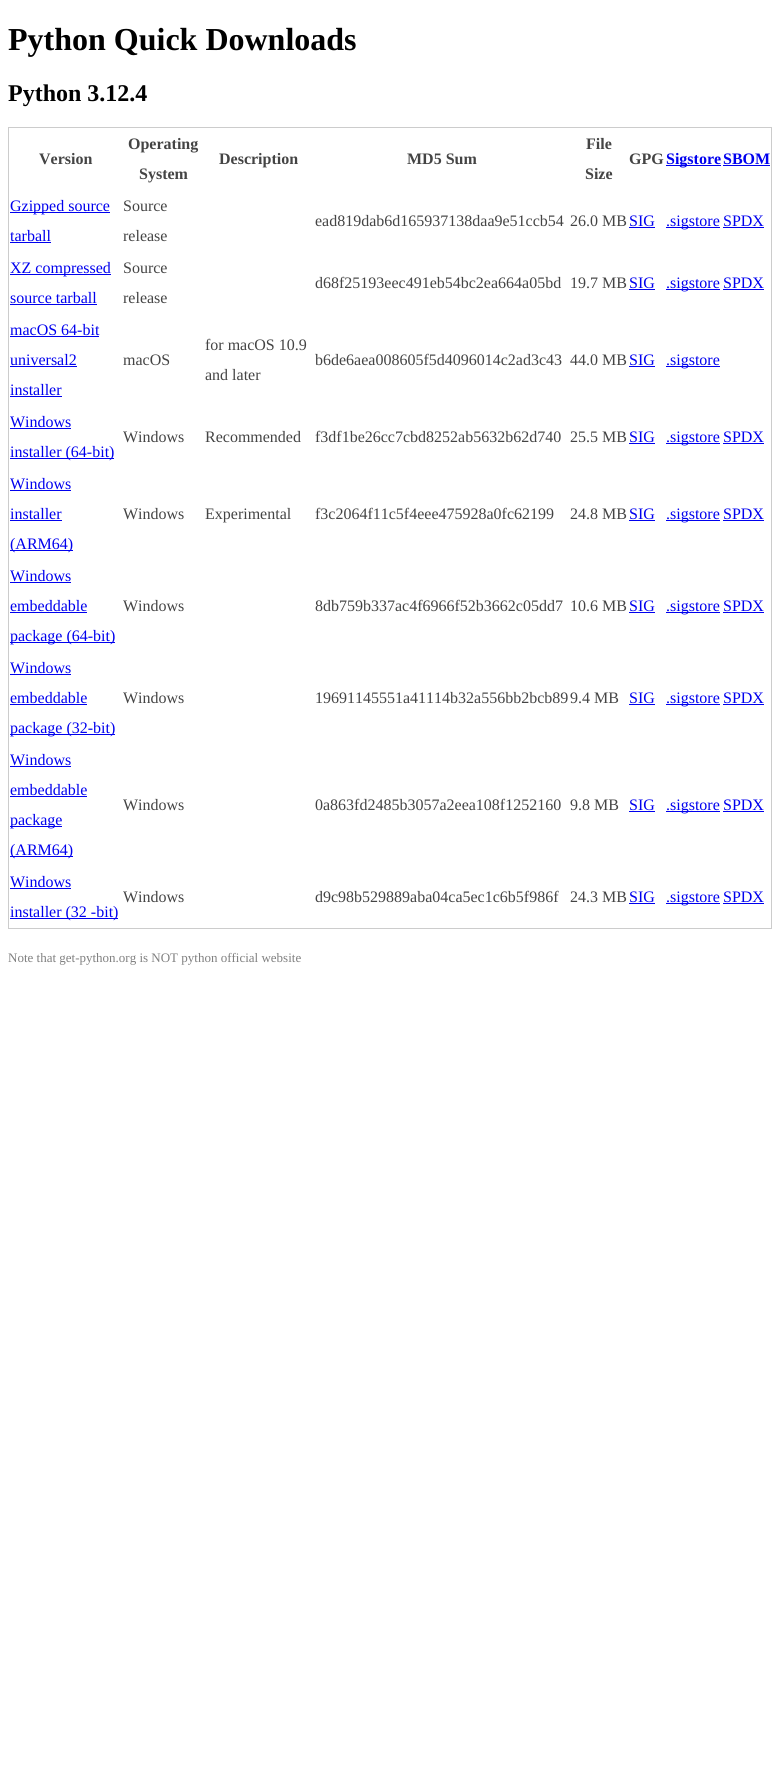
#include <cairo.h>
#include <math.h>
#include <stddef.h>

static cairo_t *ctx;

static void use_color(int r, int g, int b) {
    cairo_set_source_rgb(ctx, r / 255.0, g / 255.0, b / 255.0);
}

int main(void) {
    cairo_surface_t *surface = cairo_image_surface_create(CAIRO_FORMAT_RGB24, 780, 1765);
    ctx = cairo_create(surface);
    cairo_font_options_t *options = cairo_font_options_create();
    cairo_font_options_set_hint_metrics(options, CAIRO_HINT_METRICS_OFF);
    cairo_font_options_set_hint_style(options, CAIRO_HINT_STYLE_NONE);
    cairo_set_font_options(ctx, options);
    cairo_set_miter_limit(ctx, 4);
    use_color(255, 255, 255);
    cairo_paint(ctx);
    cairo_select_font_face(ctx, "Liberation Serif", CAIRO_FONT_SLANT_NORMAL, CAIRO_FONT_WEIGHT_BOLD);
    cairo_set_font_size(ctx, 32);
    use_color(0, 0, 0);
    cairo_move_to(ctx, 8, 50);
    cairo_show_text(ctx, "Python Quick Downloads");
    cairo_set_font_size(ctx, 24);
    cairo_move_to(ctx, 8, 101);
    cairo_show_text(ctx, "Python 3.12.4");
    use_color(204, 204, 204);
    cairo_rectangle(ctx, 8, 127, 764, 1);
    cairo_fill(ctx);
    cairo_rectangle(ctx, 771, 127, 1, 802);
    cairo_fill(ctx);
    cairo_rectangle(ctx, 8, 928, 764, 1);
    cairo_fill(ctx);
    cairo_rectangle(ctx, 8, 127, 1, 802);
    cairo_fill(ctx);
    cairo_set_font_size(ctx, 16);
    use_color(68, 68, 68);
    cairo_move_to(ctx, 39, 164);
    cairo_show_text(ctx, "Version");
    cairo_move_to(ctx, 128, 149);
    cairo_show_text(ctx, "Operating");
    cairo_move_to(ctx, 139, 179);
    cairo_show_text(ctx, "System");
    cairo_move_to(ctx, 219, 164);
    cairo_show_text(ctx, "Description");
    cairo_move_to(ctx, 407, 164);
    cairo_show_text(ctx, "MD5 Sum");
    cairo_move_to(ctx, 586, 149);
    cairo_show_text(ctx, "File");
    cairo_move_to(ctx, 585, 179);
    cairo_show_text(ctx, "Size");
    cairo_move_to(ctx, 629, 164);
    cairo_show_text(ctx, "GPG");
    use_color(0, 0, 238);
    cairo_rectangle(ctx, 666, 165, 55, 1);
    cairo_fill(ctx);
    cairo_move_to(ctx, 666, 164);
    cairo_show_text(ctx, "Sigstore");
    cairo_move_to(ctx, 723, 164);
    cairo_show_text(ctx, "SBOM");
    cairo_rectangle(ctx, 723, 165, 47, 1);
    cairo_fill(ctx);
    cairo_rectangle(ctx, 10, 212, 100, 1);
    cairo_fill(ctx);
    cairo_select_font_face(ctx, "Liberation Serif", CAIRO_FONT_SLANT_NORMAL, CAIRO_FONT_WEIGHT_NORMAL);
    cairo_move_to(ctx, 10, 211);
    cairo_show_text(ctx, "Gzipped source");
    cairo_move_to(ctx, 10, 241);
    cairo_show_text(ctx, "tarball");
    cairo_rectangle(ctx, 10, 242, 41, 1);
    cairo_fill(ctx);
    use_color(68, 68, 68);
    cairo_move_to(ctx, 123, 211);
    cairo_show_text(ctx, "Source");
    cairo_move_to(ctx, 123, 241);
    cairo_show_text(ctx, "release");
    cairo_move_to(ctx, 315, 226);
    cairo_show_text(ctx, "ead819dab6d165937138daa9e51ccb54");
    cairo_move_to(ctx, 570, 226);
    cairo_show_text(ctx, "26.0 MB");
    use_color(0, 0, 238);
    cairo_move_to(ctx, 629, 226);
    cairo_show_text(ctx, "SIG");
    cairo_rectangle(ctx, 629, 227, 26, 1);
    cairo_fill(ctx);
    cairo_rectangle(ctx, 666, 227, 54, 1);
    cairo_fill(ctx);
    cairo_move_to(ctx, 666, 226);
    cairo_show_text(ctx, ".sigstore");
    cairo_move_to(ctx, 723, 226);
    cairo_show_text(ctx, "SPDX");
    cairo_rectangle(ctx, 723, 227, 41, 1);
    cairo_fill(ctx);
    cairo_rectangle(ctx, 10, 274, 101, 1);
    cairo_fill(ctx);
    cairo_move_to(ctx, 10, 273);
    cairo_show_text(ctx, "XZ compressed");
    cairo_move_to(ctx, 10, 303);
    cairo_show_text(ctx, "source tarball");
    cairo_rectangle(ctx, 10, 304, 87, 1);
    cairo_fill(ctx);
    use_color(68, 68, 68);
    cairo_move_to(ctx, 123, 273);
    cairo_show_text(ctx, "Source");
    cairo_move_to(ctx, 123, 303);
    cairo_show_text(ctx, "release");
    cairo_move_to(ctx, 315, 288);
    cairo_show_text(ctx, "d68f25193eec491eb54bc2ea664a05bd");
    cairo_move_to(ctx, 570, 288);
    cairo_show_text(ctx, "19.7 MB");
    use_color(0, 0, 238);
    cairo_move_to(ctx, 629, 288);
    cairo_show_text(ctx, "SIG");
    cairo_rectangle(ctx, 629, 289, 26, 1);
    cairo_fill(ctx);
    cairo_rectangle(ctx, 666, 289, 54, 1);
    cairo_fill(ctx);
    cairo_move_to(ctx, 666, 288);
    cairo_show_text(ctx, ".sigstore");
    cairo_move_to(ctx, 723, 288);
    cairo_show_text(ctx, "SPDX");
    cairo_rectangle(ctx, 723, 289, 41, 1);
    cairo_fill(ctx);
    cairo_move_to(ctx, 10, 335);
    cairo_show_text(ctx, "macOS 64-bit");
    cairo_rectangle(ctx, 10, 336, 89, 1);
    cairo_fill(ctx);
    cairo_move_to(ctx, 10, 365);
    cairo_show_text(ctx, "universal2");
    cairo_rectangle(ctx, 10, 366, 67, 1);
    cairo_fill(ctx);
    cairo_move_to(ctx, 10, 395);
    cairo_show_text(ctx, "installer");
    cairo_rectangle(ctx, 10, 396, 52, 1);
    cairo_fill(ctx);
    use_color(68, 68, 68);
    cairo_move_to(ctx, 123, 365);
    cairo_show_text(ctx, "macOS");
    cairo_move_to(ctx, 205, 350);
    cairo_show_text(ctx, "for macOS 10.9");
    cairo_move_to(ctx, 205, 380);
    cairo_show_text(ctx, "and later");
    cairo_move_to(ctx, 315, 365);
    cairo_show_text(ctx, "b6de6aea008605f5d4096014c2ad3c43");
    cairo_move_to(ctx, 570, 365);
    cairo_show_text(ctx, "44.0 MB");
    use_color(0, 0, 238);
    cairo_move_to(ctx, 629, 365);
    cairo_show_text(ctx, "SIG");
    cairo_rectangle(ctx, 629, 366, 26, 1);
    cairo_fill(ctx);
    cairo_rectangle(ctx, 666, 366, 54, 1);
    cairo_fill(ctx);
    cairo_move_to(ctx, 666, 365);
    cairo_show_text(ctx, ".sigstore");
    cairo_move_to(ctx, 10, 427);
    cairo_show_text(ctx, "Windows");
    cairo_rectangle(ctx, 10, 428, 61, 1);
    cairo_fill(ctx);
    cairo_rectangle(ctx, 10, 458, 104, 1);
    cairo_fill(ctx);
    cairo_move_to(ctx, 10, 457);
    cairo_show_text(ctx, "installer (64-bit)");
    use_color(68, 68, 68);
    cairo_move_to(ctx, 123, 442);
    cairo_show_text(ctx, "Windows");
    cairo_move_to(ctx, 205, 442);
    cairo_show_text(ctx, "Recommended");
    cairo_move_to(ctx, 315, 442);
    cairo_show_text(ctx, "f3df1be26cc7cbd8252ab5632b62d740");
    cairo_move_to(ctx, 570, 442);
    cairo_show_text(ctx, "25.5 MB");
    use_color(0, 0, 238);
    cairo_move_to(ctx, 629, 442);
    cairo_show_text(ctx, "SIG");
    cairo_rectangle(ctx, 629, 443, 26, 1);
    cairo_fill(ctx);
    cairo_rectangle(ctx, 666, 443, 54, 1);
    cairo_fill(ctx);
    cairo_move_to(ctx, 666, 442);
    cairo_show_text(ctx, ".sigstore");
    cairo_move_to(ctx, 723, 442);
    cairo_show_text(ctx, "SPDX");
    cairo_rectangle(ctx, 723, 443, 41, 1);
    cairo_fill(ctx);
    cairo_move_to(ctx, 10, 489);
    cairo_show_text(ctx, "Windows");
    cairo_rectangle(ctx, 10, 490, 61, 1);
    cairo_fill(ctx);
    cairo_move_to(ctx, 10, 519);
    cairo_show_text(ctx, "installer");
    cairo_rectangle(ctx, 10, 520, 52, 1);
    cairo_fill(ctx);
    cairo_rectangle(ctx, 10, 550, 63, 1);
    cairo_fill(ctx);
    cairo_move_to(ctx, 10, 549);
    cairo_show_text(ctx, "(ARM64)");
    use_color(68, 68, 68);
    cairo_move_to(ctx, 123, 519);
    cairo_show_text(ctx, "Windows");
    cairo_move_to(ctx, 205, 519);
    cairo_show_text(ctx, "Experimental");
    cairo_move_to(ctx, 315, 519);
    cairo_show_text(ctx, "f3c2064f11c5f4eee475928a0fc62199");
    cairo_move_to(ctx, 570, 519);
    cairo_show_text(ctx, "24.8 MB");
    use_color(0, 0, 238);
    cairo_move_to(ctx, 629, 519);
    cairo_show_text(ctx, "SIG");
    cairo_rectangle(ctx, 629, 520, 26, 1);
    cairo_fill(ctx);
    cairo_rectangle(ctx, 666, 520, 54, 1);
    cairo_fill(ctx);
    cairo_move_to(ctx, 666, 519);
    cairo_show_text(ctx, ".sigstore");
    cairo_move_to(ctx, 723, 519);
    cairo_show_text(ctx, "SPDX");
    cairo_rectangle(ctx, 723, 520, 41, 1);
    cairo_fill(ctx);
    cairo_move_to(ctx, 10, 581);
    cairo_show_text(ctx, "Windows");
    cairo_rectangle(ctx, 10, 582, 61, 1);
    cairo_fill(ctx);
    cairo_move_to(ctx, 10, 611);
    cairo_show_text(ctx, "embeddable");
    cairo_rectangle(ctx, 10, 612, 77, 1);
    cairo_fill(ctx);
    cairo_rectangle(ctx, 10, 642, 105, 1);
    cairo_fill(ctx);
    cairo_move_to(ctx, 10, 641);
    cairo_show_text(ctx, "package (64-bit)");
    use_color(68, 68, 68);
    cairo_move_to(ctx, 123, 611);
    cairo_show_text(ctx, "Windows");
    cairo_move_to(ctx, 315, 611);
    cairo_show_text(ctx, "8db759b337ac4f6966f52b3662c05dd7");
    cairo_move_to(ctx, 570, 611);
    cairo_show_text(ctx, "10.6 MB");
    use_color(0, 0, 238);
    cairo_move_to(ctx, 629, 611);
    cairo_show_text(ctx, "SIG");
    cairo_rectangle(ctx, 629, 612, 26, 1);
    cairo_fill(ctx);
    cairo_rectangle(ctx, 666, 612, 54, 1);
    cairo_fill(ctx);
    cairo_move_to(ctx, 666, 611);
    cairo_show_text(ctx, ".sigstore");
    cairo_move_to(ctx, 723, 611);
    cairo_show_text(ctx, "SPDX");
    cairo_rectangle(ctx, 723, 612, 41, 1);
    cairo_fill(ctx);
    cairo_move_to(ctx, 10, 673);
    cairo_show_text(ctx, "Windows");
    cairo_rectangle(ctx, 10, 674, 61, 1);
    cairo_fill(ctx);
    cairo_move_to(ctx, 10, 703);
    cairo_show_text(ctx, "embeddable");
    cairo_rectangle(ctx, 10, 704, 77, 1);
    cairo_fill(ctx);
    cairo_rectangle(ctx, 10, 734, 105, 1);
    cairo_fill(ctx);
    cairo_move_to(ctx, 10, 733);
    cairo_show_text(ctx, "package (32-bit)");
    use_color(68, 68, 68);
    cairo_move_to(ctx, 123, 703);
    cairo_show_text(ctx, "Windows");
    cairo_move_to(ctx, 315, 703);
    cairo_show_text(ctx, "19691145551a41114b32a556bb2bcb89");
    cairo_move_to(ctx, 570, 703);
    cairo_show_text(ctx, "9.4 MB");
    use_color(0, 0, 238);
    cairo_move_to(ctx, 629, 703);
    cairo_show_text(ctx, "SIG");
    cairo_rectangle(ctx, 629, 704, 26, 1);
    cairo_fill(ctx);
    cairo_rectangle(ctx, 666, 704, 54, 1);
    cairo_fill(ctx);
    cairo_move_to(ctx, 666, 703);
    cairo_show_text(ctx, ".sigstore");
    cairo_move_to(ctx, 723, 703);
    cairo_show_text(ctx, "SPDX");
    cairo_rectangle(ctx, 723, 704, 41, 1);
    cairo_fill(ctx);
    cairo_move_to(ctx, 10, 765);
    cairo_show_text(ctx, "Windows");
    cairo_rectangle(ctx, 10, 766, 61, 1);
    cairo_fill(ctx);
    cairo_move_to(ctx, 10, 795);
    cairo_show_text(ctx, "embeddable");
    cairo_rectangle(ctx, 10, 796, 77, 1);
    cairo_fill(ctx);
    cairo_rectangle(ctx, 10, 826, 52, 1);
    cairo_fill(ctx);
    cairo_move_to(ctx, 10, 825);
    cairo_show_text(ctx, "package");
    cairo_rectangle(ctx, 10, 856, 63, 1);
    cairo_fill(ctx);
    cairo_move_to(ctx, 10, 855);
    cairo_show_text(ctx, "(ARM64)");
    use_color(68, 68, 68);
    cairo_move_to(ctx, 123, 810);
    cairo_show_text(ctx, "Windows");
    cairo_move_to(ctx, 315, 810);
    cairo_show_text(ctx, "0a863fd2485b3057a2eea108f1252160");
    cairo_move_to(ctx, 570, 810);
    cairo_show_text(ctx, "9.8 MB");
    use_color(0, 0, 238);
    cairo_move_to(ctx, 629, 810);
    cairo_show_text(ctx, "SIG");
    cairo_rectangle(ctx, 629, 811, 26, 1);
    cairo_fill(ctx);
    cairo_rectangle(ctx, 666, 811, 54, 1);
    cairo_fill(ctx);
    cairo_move_to(ctx, 666, 810);
    cairo_show_text(ctx, ".sigstore");
    cairo_move_to(ctx, 723, 810);
    cairo_show_text(ctx, "SPDX");
    cairo_rectangle(ctx, 723, 811, 41, 1);
    cairo_fill(ctx);
    cairo_move_to(ctx, 10, 887);
    cairo_show_text(ctx, "Windows");
    cairo_rectangle(ctx, 10, 888, 61, 1);
    cairo_fill(ctx);
    cairo_rectangle(ctx, 10, 918, 108, 1);
    cairo_fill(ctx);
    cairo_move_to(ctx, 10, 917);
    cairo_show_text(ctx, "installer (32 -bit)");
    use_color(68, 68, 68);
    cairo_move_to(ctx, 123, 902);
    cairo_show_text(ctx, "Windows");
    cairo_move_to(ctx, 315, 902);
    cairo_show_text(ctx, "d9c98b529889aba04ca5ec1c6b5f986f");
    cairo_move_to(ctx, 570, 902);
    cairo_show_text(ctx, "24.3 MB");
    use_color(0, 0, 238);
    cairo_move_to(ctx, 629, 902);
    cairo_show_text(ctx, "SIG");
    cairo_rectangle(ctx, 629, 903, 26, 1);
    cairo_fill(ctx);
    cairo_rectangle(ctx, 666, 903, 54, 1);
    cairo_fill(ctx);
    cairo_move_to(ctx, 666, 902);
    cairo_show_text(ctx, ".sigstore");
    cairo_move_to(ctx, 723, 902);
    cairo_show_text(ctx, "SPDX");
    cairo_rectangle(ctx, 723, 903, 41, 1);
    cairo_fill(ctx);
    cairo_set_font_size(ctx, 13);
    use_color(128, 128, 128);
    cairo_move_to(ctx, 8, 962);
    cairo_show_text(ctx, "Note that get-python.org is NOT python official website");
    cairo_surface_write_to_png(surface, "result.png");
    cairo_font_options_destroy(options);
    cairo_destroy(ctx);
    cairo_surface_destroy(surface);
    return 0;
}
